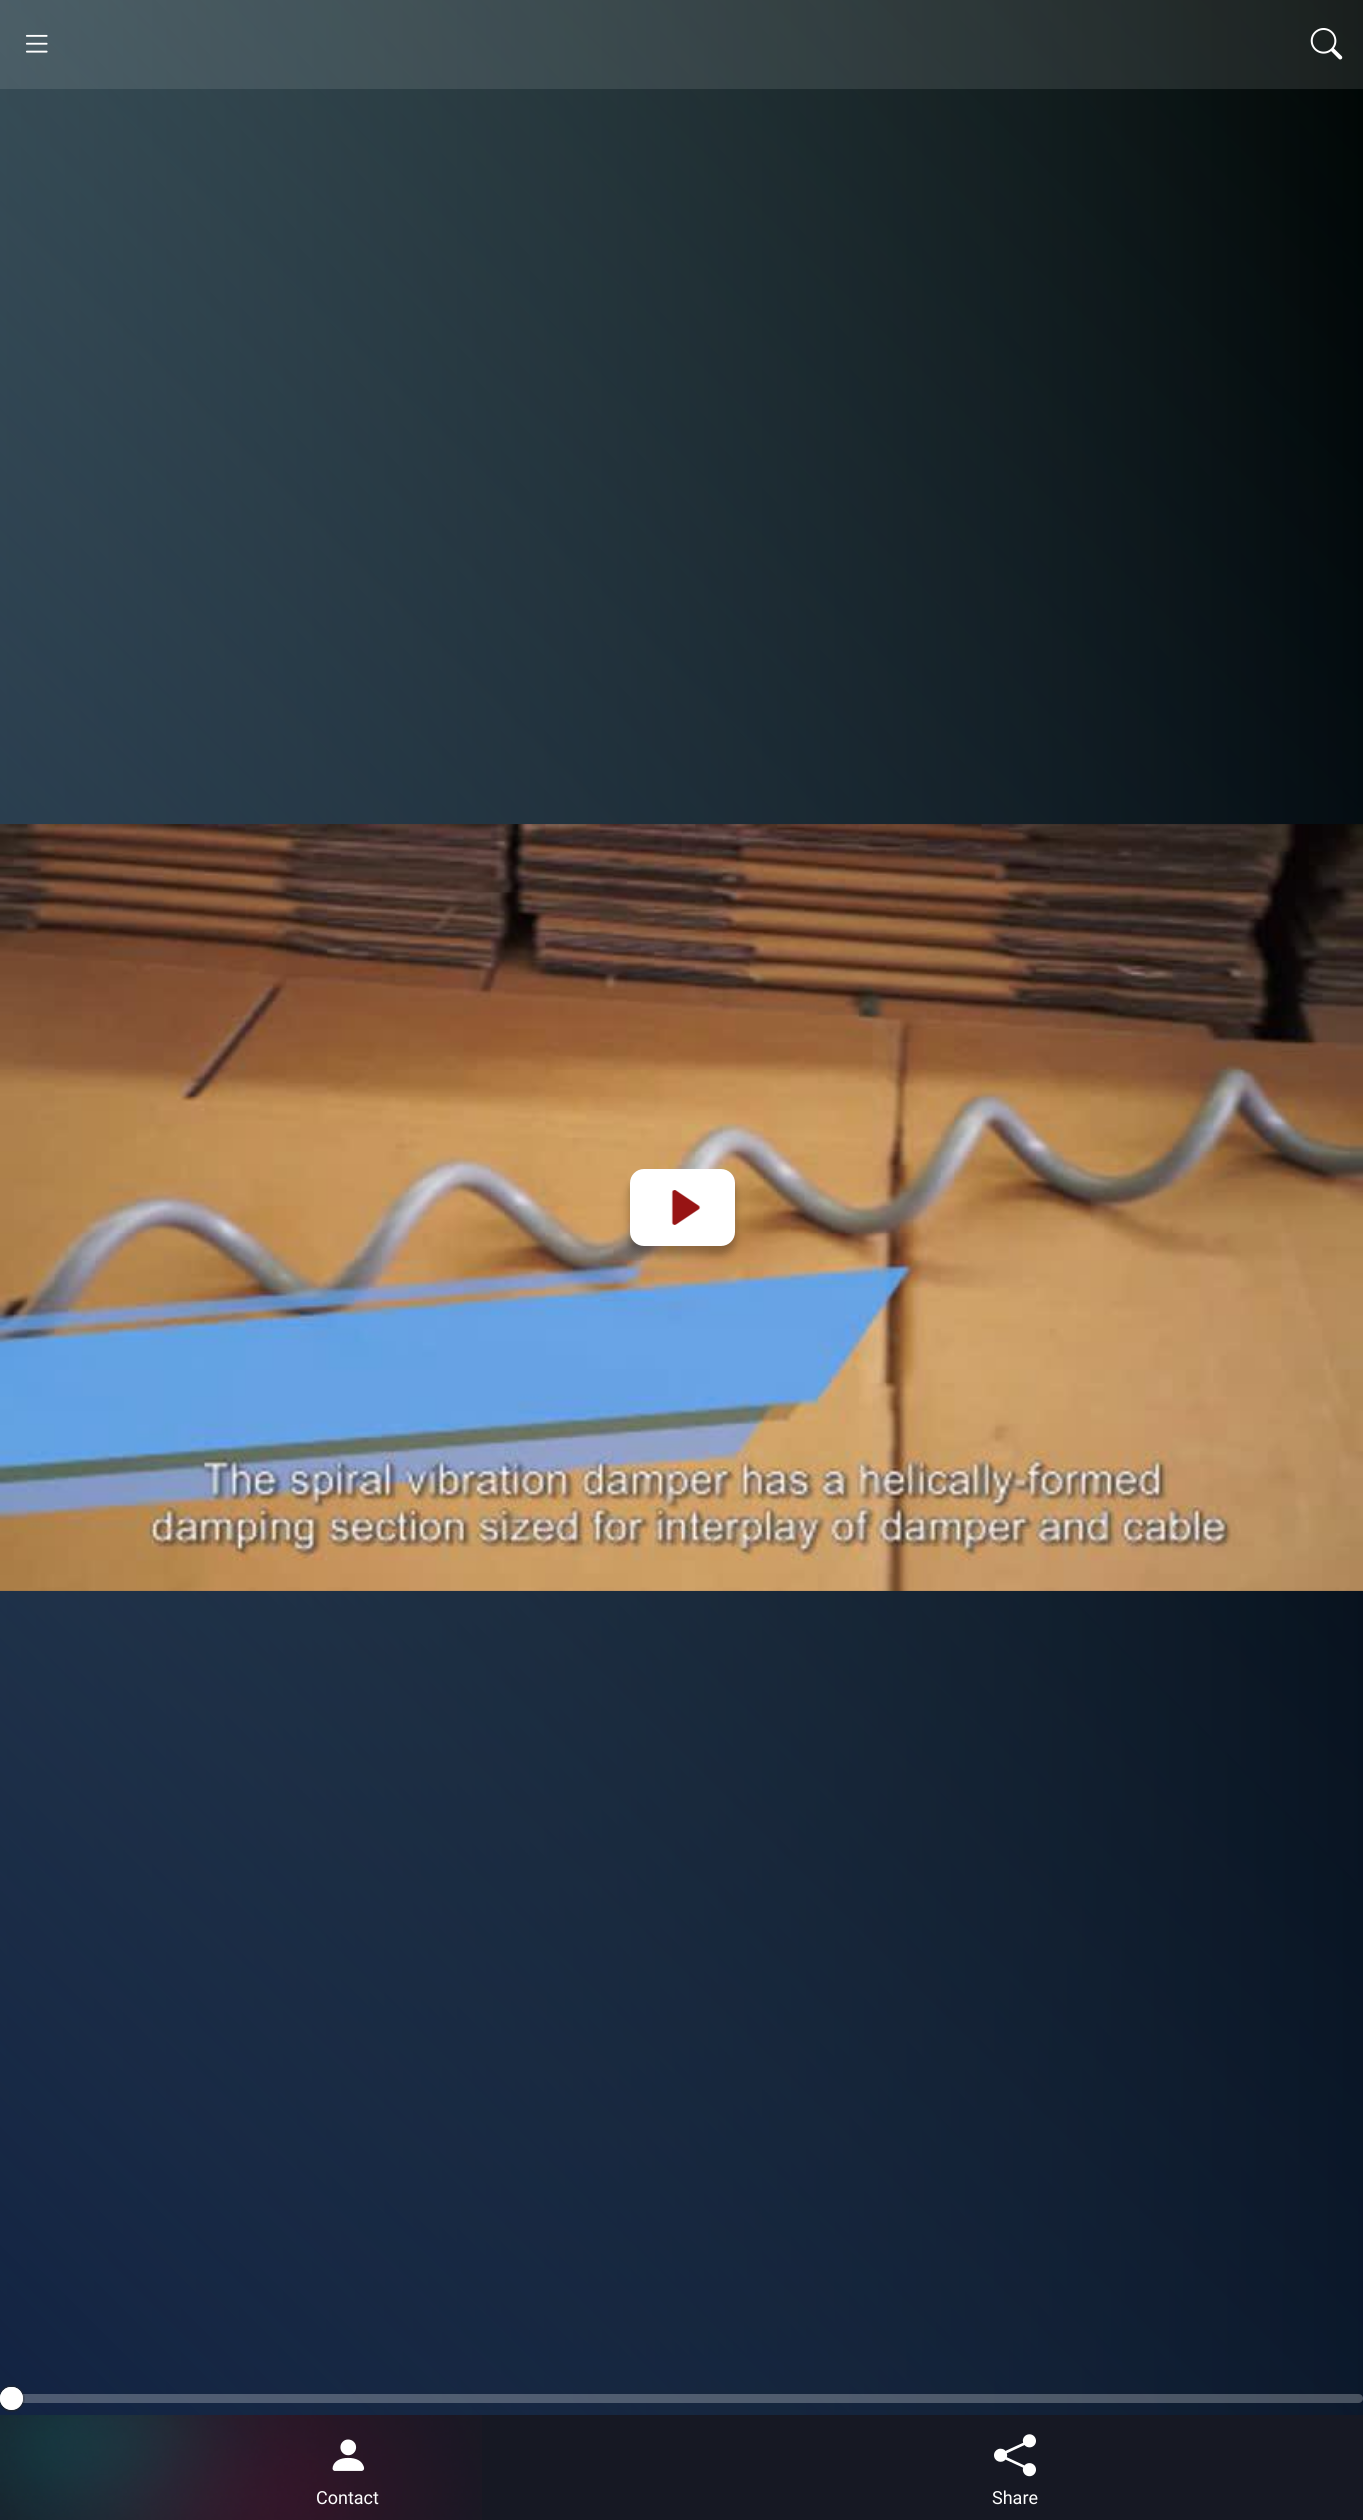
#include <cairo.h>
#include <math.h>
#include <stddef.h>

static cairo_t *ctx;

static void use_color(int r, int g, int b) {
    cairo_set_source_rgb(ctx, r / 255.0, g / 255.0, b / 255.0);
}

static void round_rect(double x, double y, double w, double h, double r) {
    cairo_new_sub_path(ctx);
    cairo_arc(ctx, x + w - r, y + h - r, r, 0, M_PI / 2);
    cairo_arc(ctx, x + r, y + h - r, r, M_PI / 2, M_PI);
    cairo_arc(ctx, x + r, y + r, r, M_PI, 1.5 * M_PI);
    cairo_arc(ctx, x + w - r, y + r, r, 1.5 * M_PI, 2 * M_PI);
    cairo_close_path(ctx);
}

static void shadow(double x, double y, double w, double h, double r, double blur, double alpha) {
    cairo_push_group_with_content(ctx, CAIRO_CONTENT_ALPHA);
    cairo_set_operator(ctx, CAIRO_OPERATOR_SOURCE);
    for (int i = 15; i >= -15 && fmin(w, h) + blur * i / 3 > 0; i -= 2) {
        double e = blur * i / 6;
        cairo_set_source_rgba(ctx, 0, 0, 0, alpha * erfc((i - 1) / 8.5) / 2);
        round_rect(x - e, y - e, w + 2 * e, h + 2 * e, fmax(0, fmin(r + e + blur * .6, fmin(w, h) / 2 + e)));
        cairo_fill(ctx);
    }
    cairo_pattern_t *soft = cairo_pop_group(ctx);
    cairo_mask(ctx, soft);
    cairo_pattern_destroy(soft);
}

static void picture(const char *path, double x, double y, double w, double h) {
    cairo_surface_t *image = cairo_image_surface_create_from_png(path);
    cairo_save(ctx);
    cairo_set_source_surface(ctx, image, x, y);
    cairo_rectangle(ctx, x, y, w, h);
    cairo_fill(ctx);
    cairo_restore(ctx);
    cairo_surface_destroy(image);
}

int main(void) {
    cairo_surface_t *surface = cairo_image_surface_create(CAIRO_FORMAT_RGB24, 1363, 2520);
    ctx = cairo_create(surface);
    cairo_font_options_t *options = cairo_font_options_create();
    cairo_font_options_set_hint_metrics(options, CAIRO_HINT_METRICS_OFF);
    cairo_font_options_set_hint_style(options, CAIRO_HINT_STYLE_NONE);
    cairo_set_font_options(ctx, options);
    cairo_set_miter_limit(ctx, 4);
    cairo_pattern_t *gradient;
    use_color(22, 24, 35);
    cairo_paint(ctx);
    gradient = cairo_pattern_create_linear(0, 1208, 1363, 1208);
    cairo_pattern_add_color_stop_rgba(gradient, 0, 0.298, 0.392, 0.38, 1);
    cairo_pattern_add_color_stop_rgba(gradient, 1, 0, 0.024, 0.016, 1);
    cairo_set_source(ctx, gradient);
    cairo_pattern_destroy(gradient);
    cairo_rectangle(ctx, 0, 0, 1363, 2415);
    cairo_fill(ctx);
    gradient = cairo_pattern_create_linear(-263, 2152, 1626, 263);
    cairo_pattern_add_color_stop_rgba(gradient, 0, 0.071, 0.137, 0.259, 1);
    cairo_pattern_add_color_stop_rgba(gradient, 1, 0.071, 0.137, 0.259, 0);
    cairo_set_source(ctx, gradient);
    cairo_pattern_destroy(gradient);
    cairo_rectangle(ctx, 0, 0, 1363, 2415);
    cairo_fill(ctx);
    picture("img1.png", 0, 824, 1363, 1588);
    picture("img2.png", 0, 824, 1363, 1588);
    use_color(0, 0, 0);
    shadow(630, 1178, 105, 77, 14, 4.5, 0.3);
    use_color(255, 255, 255);
    round_rect(630, 1169, 105, 77, 14);
    cairo_fill(ctx);
    picture("img3.png", 671, 1190, 30, 35);
    cairo_set_source_rgba(ctx, 1, 1, 1, 0.25);
    round_rect(0, 2394, 1363, 9, 4.5);
    cairo_fill(ctx);
    cairo_arc(ctx, 11.5, 2398.5, 12.5, 0, 2 * M_PI);
    cairo_set_source_rgba(ctx, 0.137, 0.157, 0.184, 0.2);
    cairo_stroke(ctx);
    picture("img6.png", 0, 2415, 482, 105);
    use_color(35, 40, 47);
    shadow(0, 2389, 23, 23, 11.5, 1, 0.15);
    use_color(255, 255, 255);
    cairo_arc(ctx, 11.5, 2398.5, 11.5, 0, 2 * M_PI);
    cairo_fill(ctx);
    cairo_set_source_rgba(ctx, 1, 1, 1, 0.1);
    cairo_rectangle(ctx, 0, 0, 1363, 89);
    cairo_fill(ctx);
    picture("img4.png", 25, 34, 23, 19);
    picture("img5.png", 1310, 28, 33, 32);
    picture("img7.png", 332, 2439, 33, 32);
    cairo_select_font_face(ctx, "Roboto", CAIRO_FONT_SLANT_NORMAL, CAIRO_FONT_WEIGHT_NORMAL);
    cairo_set_font_size(ctx, 18);
    use_color(255, 255, 255);
    cairo_move_to(ctx, 316, 2504);
    cairo_show_text(ctx, "Contact");
    picture("img8.png", 994, 2434, 42, 43);
    cairo_move_to(ctx, 992, 2504);
    cairo_show_text(ctx, "Share");
    cairo_surface_write_to_png(surface, "result.png");
    cairo_font_options_destroy(options);
    cairo_destroy(ctx);
    cairo_surface_destroy(surface);
    return 0;
}
